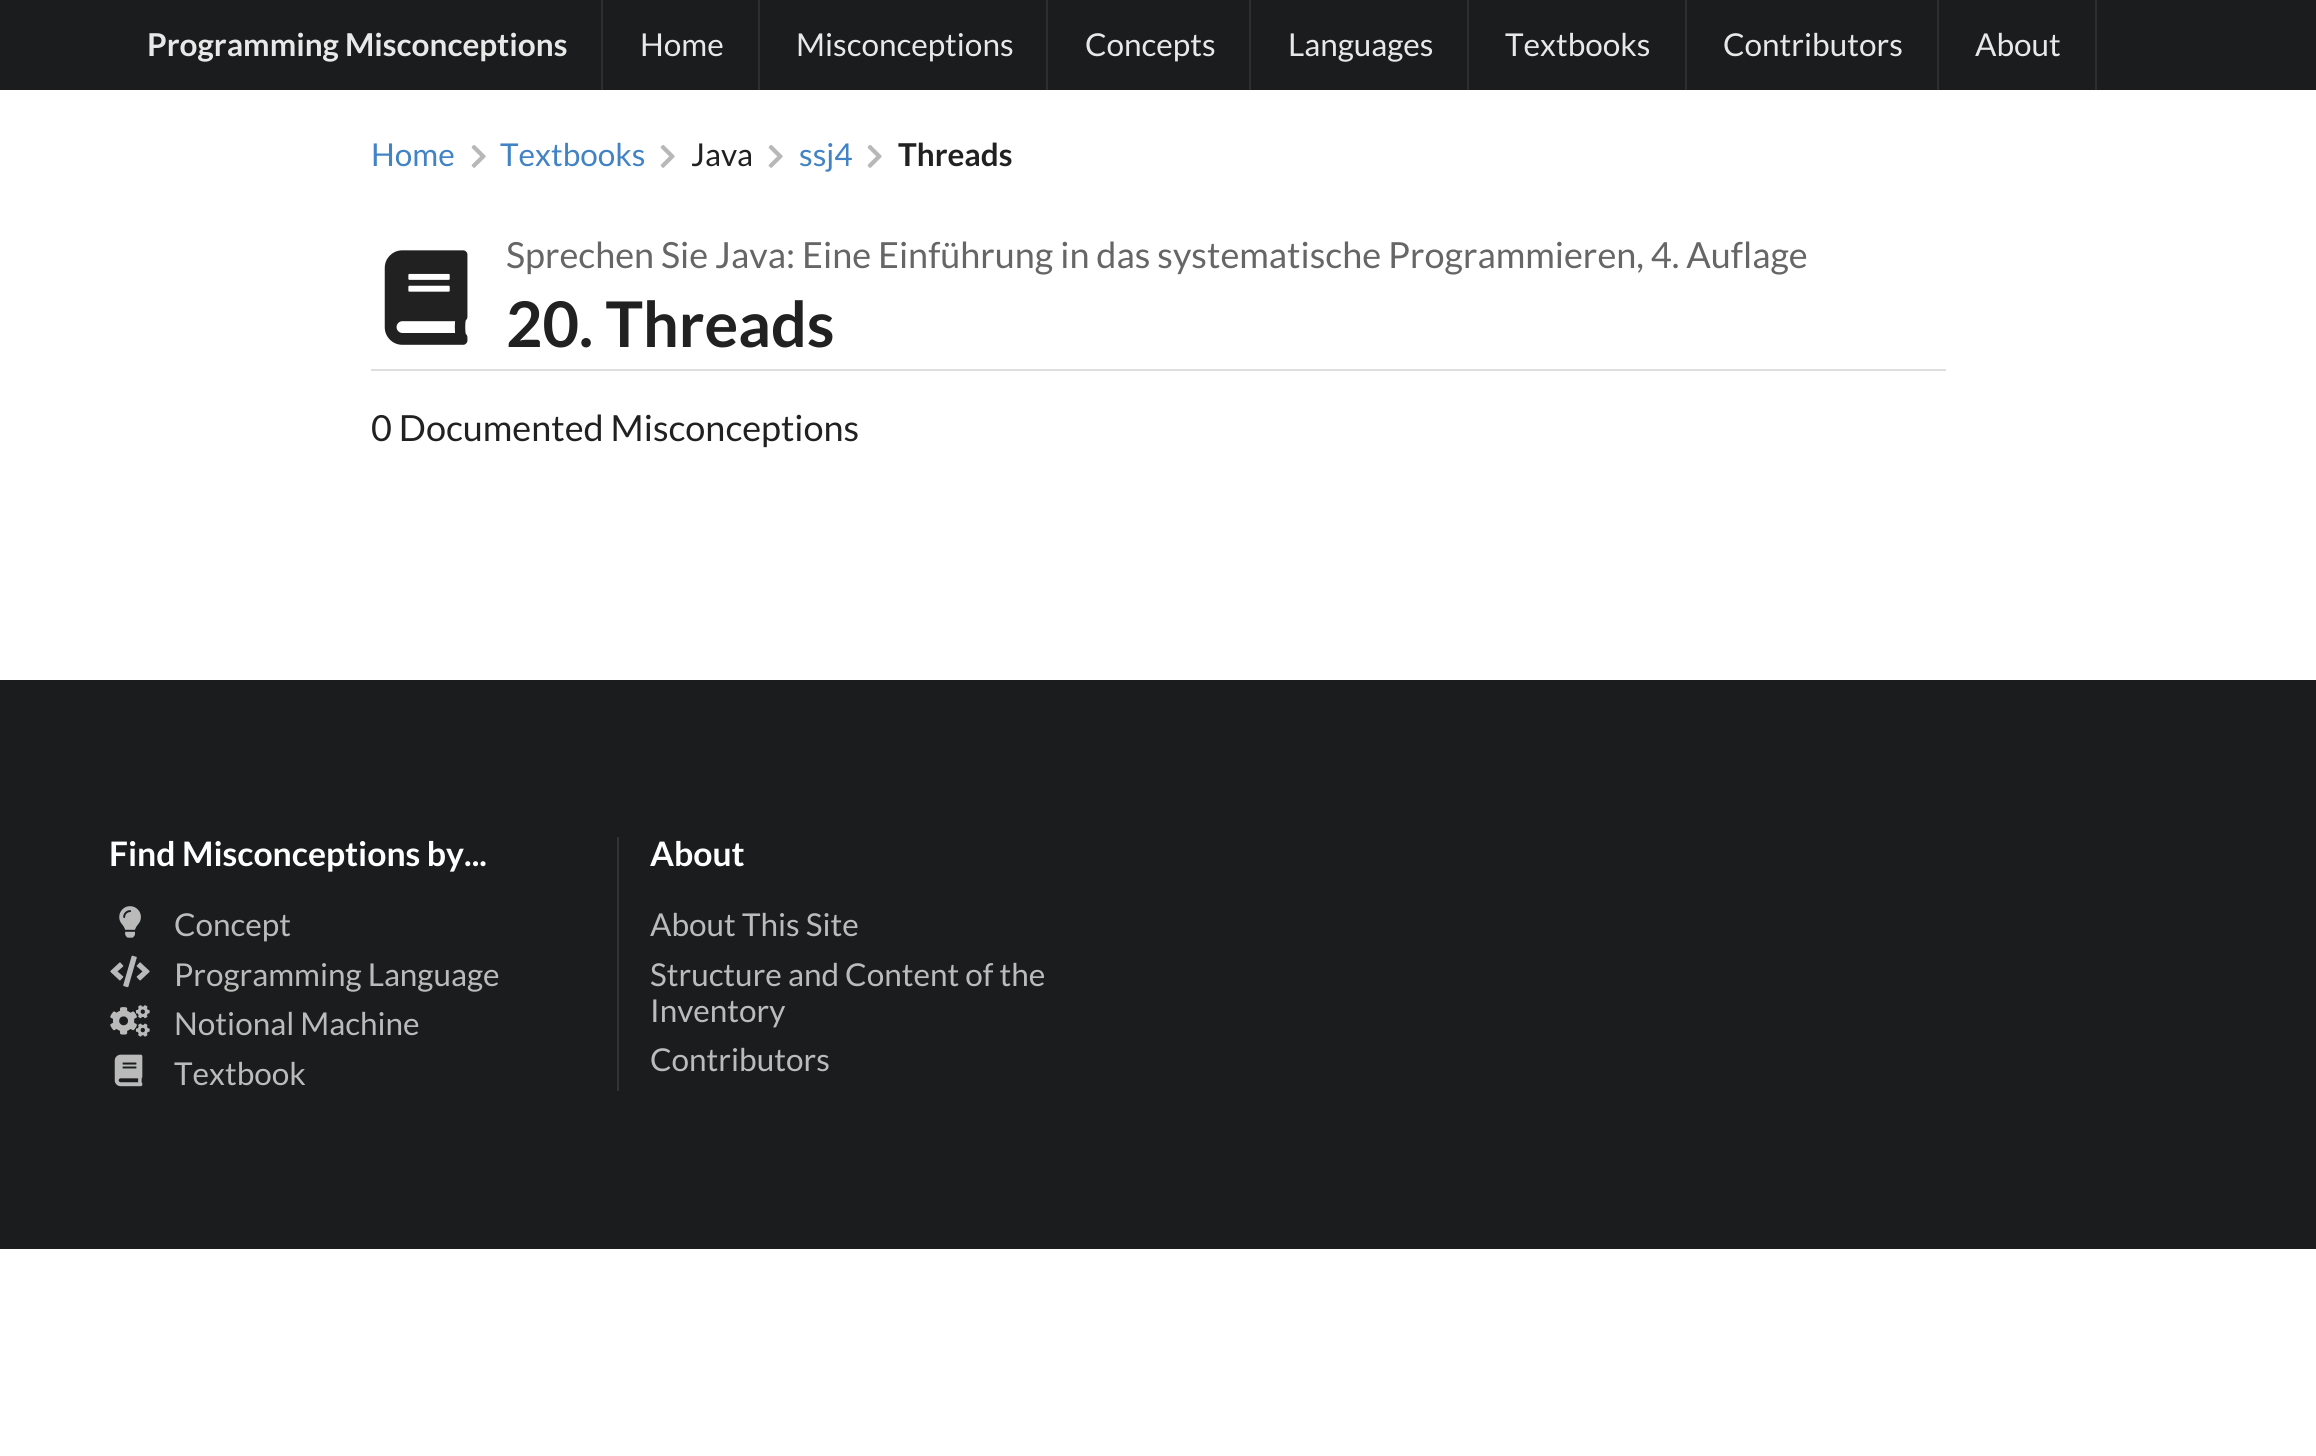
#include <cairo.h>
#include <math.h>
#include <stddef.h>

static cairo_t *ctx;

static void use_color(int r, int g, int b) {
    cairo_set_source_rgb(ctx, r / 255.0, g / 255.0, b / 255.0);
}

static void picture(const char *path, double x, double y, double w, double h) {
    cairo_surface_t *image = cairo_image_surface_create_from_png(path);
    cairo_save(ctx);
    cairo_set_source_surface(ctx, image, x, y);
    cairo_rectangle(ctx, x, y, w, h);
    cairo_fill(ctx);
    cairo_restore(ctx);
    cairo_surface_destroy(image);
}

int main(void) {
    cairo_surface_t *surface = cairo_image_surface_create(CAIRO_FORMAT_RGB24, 2316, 1456);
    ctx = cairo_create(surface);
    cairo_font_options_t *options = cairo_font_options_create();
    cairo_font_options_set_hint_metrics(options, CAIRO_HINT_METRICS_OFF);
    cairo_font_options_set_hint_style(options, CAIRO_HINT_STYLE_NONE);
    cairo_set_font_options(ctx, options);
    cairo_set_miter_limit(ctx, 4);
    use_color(255, 255, 255);
    cairo_paint(ctx);
    use_color(27, 28, 29);
    cairo_rectangle(ctx, 0, 0, 2316, 90);
    cairo_fill(ctx);
    cairo_select_font_face(ctx, "Lato", CAIRO_FONT_SLANT_NORMAL, CAIRO_FONT_WEIGHT_BOLD);
    cairo_set_font_size(ctx, 31.5);
    use_color(232, 232, 232);
    cairo_move_to(ctx, 147, 56);
    cairo_show_text(ctx, "Programming Misconceptions");
    use_color(45, 46, 47);
    cairo_rectangle(ctx, 601, 0, 2, 90);
    cairo_fill(ctx);
    cairo_select_font_face(ctx, "Lato", CAIRO_FONT_SLANT_NORMAL, CAIRO_FONT_WEIGHT_NORMAL);
    use_color(232, 232, 232);
    cairo_move_to(ctx, 640, 56);
    cairo_show_text(ctx, "Home");
    use_color(45, 46, 47);
    cairo_rectangle(ctx, 758, 0, 2, 90);
    cairo_fill(ctx);
    use_color(232, 232, 232);
    cairo_move_to(ctx, 796, 56);
    cairo_show_text(ctx, "Misconceptions");
    use_color(45, 46, 47);
    cairo_rectangle(ctx, 1046, 0, 2, 90);
    cairo_fill(ctx);
    use_color(232, 232, 232);
    cairo_move_to(ctx, 1085, 56);
    cairo_show_text(ctx, "Concepts");
    use_color(45, 46, 47);
    cairo_rectangle(ctx, 1249, 0, 2, 90);
    cairo_fill(ctx);
    use_color(232, 232, 232);
    cairo_move_to(ctx, 1288, 56);
    cairo_show_text(ctx, "Languages");
    use_color(45, 46, 47);
    cairo_rectangle(ctx, 1467, 0, 2, 90);
    cairo_fill(ctx);
    use_color(232, 232, 232);
    cairo_move_to(ctx, 1505, 56);
    cairo_show_text(ctx, "Textbooks");
    use_color(45, 46, 47);
    cairo_rectangle(ctx, 1685, 0, 2, 90);
    cairo_fill(ctx);
    use_color(232, 232, 232);
    cairo_move_to(ctx, 1723, 56);
    cairo_show_text(ctx, "Contributors");
    use_color(45, 46, 47);
    cairo_rectangle(ctx, 1937, 0, 2, 90);
    cairo_fill(ctx);
    use_color(232, 232, 232);
    cairo_move_to(ctx, 1975, 56);
    cairo_show_text(ctx, "About");
    use_color(45, 46, 47);
    cairo_rectangle(ctx, 2095, 0, 2, 90);
    cairo_fill(ctx);
    use_color(65, 131, 196);
    cairo_move_to(ctx, 371, 166);
    cairo_show_text(ctx, "Home");
    picture("img1.png", 471, 145, 15, 23);
    cairo_move_to(ctx, 500, 166);
    cairo_show_text(ctx, "Textbooks");
    picture("img1.png", 660, 145, 15, 23);
    use_color(33, 33, 33);
    cairo_move_to(ctx, 691, 166);
    cairo_show_text(ctx, "Java");
    picture("img1.png", 768, 145, 15, 23);
    use_color(65, 131, 196);
    cairo_move_to(ctx, 799, 166);
    cairo_show_text(ctx, "ssj4");
    picture("img1.png", 867, 145, 15, 23);
    cairo_select_font_face(ctx, "Lato", CAIRO_FONT_SLANT_NORMAL, CAIRO_FONT_WEIGHT_BOLD);
    use_color(33, 33, 33);
    cairo_move_to(ctx, 898, 166);
    cairo_show_text(ctx, "Threads");
    use_color(222, 222, 222);
    cairo_rectangle(ctx, 371, 369, 1575, 2);
    cairo_fill(ctx);
    picture("img2.png", 384, 250, 84, 95);
    cairo_select_font_face(ctx, "Lato", CAIRO_FONT_SLANT_NORMAL, CAIRO_FONT_WEIGHT_NORMAL);
    cairo_set_font_size(ctx, 36);
    use_color(102, 102, 102);
    cairo_move_to(ctx, 506, 268);
    cairo_show_text(ctx, "Sprechen Sie Java: Eine Einführung in das systematische Programmieren, 4. Auflage");
    cairo_select_font_face(ctx, "Lato", CAIRO_FONT_SLANT_NORMAL, CAIRO_FONT_WEIGHT_BOLD);
    cairo_set_font_size(ctx, 63);
    use_color(33, 33, 33);
    cairo_move_to(ctx, 506, 347);
    cairo_show_text(ctx, "20. Threads");
    cairo_select_font_face(ctx, "Lato", CAIRO_FONT_SLANT_NORMAL, CAIRO_FONT_WEIGHT_NORMAL);
    cairo_set_font_size(ctx, 36);
    cairo_move_to(ctx, 371, 441);
    cairo_show_text(ctx, "0 Documented Misconceptions");
    use_color(27, 28, 29);
    cairo_rectangle(ctx, 0, 680, 2316, 569);
    cairo_fill(ctx);
    cairo_select_font_face(ctx, "Lato", CAIRO_FONT_SLANT_NORMAL, CAIRO_FONT_WEIGHT_BOLD);
    cairo_set_font_size(ctx, 33.75);
    use_color(255, 255, 255);
    cairo_move_to(ctx, 109, 866);
    cairo_show_text(ctx, "Find Misconceptions by...");
    picture("img3.png", 119, 906, 22, 32);
    cairo_select_font_face(ctx, "Lato", CAIRO_FONT_SLANT_NORMAL, CAIRO_FONT_WEIGHT_NORMAL);
    cairo_set_font_size(ctx, 31.5);
    use_color(187, 187, 187);
    cairo_move_to(ctx, 174, 936);
    cairo_show_text(ctx, "Concept");
    picture("img4.png", 110, 955, 40, 33);
    cairo_move_to(ctx, 174, 986);
    cairo_show_text(ctx, "Programming Language");
    picture("img5.png", 110, 1005, 40, 32);
    cairo_move_to(ctx, 174, 1035);
    cairo_show_text(ctx, "Notional Machine");
    picture("img6.png", 114, 1054, 29, 33);
    cairo_move_to(ctx, 174, 1085);
    cairo_show_text(ctx, "Textbook");
    use_color(50, 51, 52);
    cairo_rectangle(ctx, 617, 837, 2, 254);
    cairo_fill(ctx);
    cairo_select_font_face(ctx, "Lato", CAIRO_FONT_SLANT_NORMAL, CAIRO_FONT_WEIGHT_BOLD);
    cairo_set_font_size(ctx, 33.75);
    use_color(255, 255, 255);
    cairo_move_to(ctx, 650, 866);
    cairo_show_text(ctx, "About");
    cairo_select_font_face(ctx, "Lato", CAIRO_FONT_SLANT_NORMAL, CAIRO_FONT_WEIGHT_NORMAL);
    cairo_set_font_size(ctx, 31.5);
    use_color(187, 187, 187);
    cairo_move_to(ctx, 650, 936);
    cairo_show_text(ctx, "About This Site");
    cairo_move_to(ctx, 650, 986);
    cairo_show_text(ctx, "Structure and Content of the");
    cairo_move_to(ctx, 650, 1022);
    cairo_show_text(ctx, "Inventory");
    cairo_move_to(ctx, 650, 1071);
    cairo_show_text(ctx, "Contributors");
    cairo_surface_write_to_png(surface, "result.png");
    cairo_font_options_destroy(options);
    cairo_destroy(ctx);
    cairo_surface_destroy(surface);
    return 0;
}
